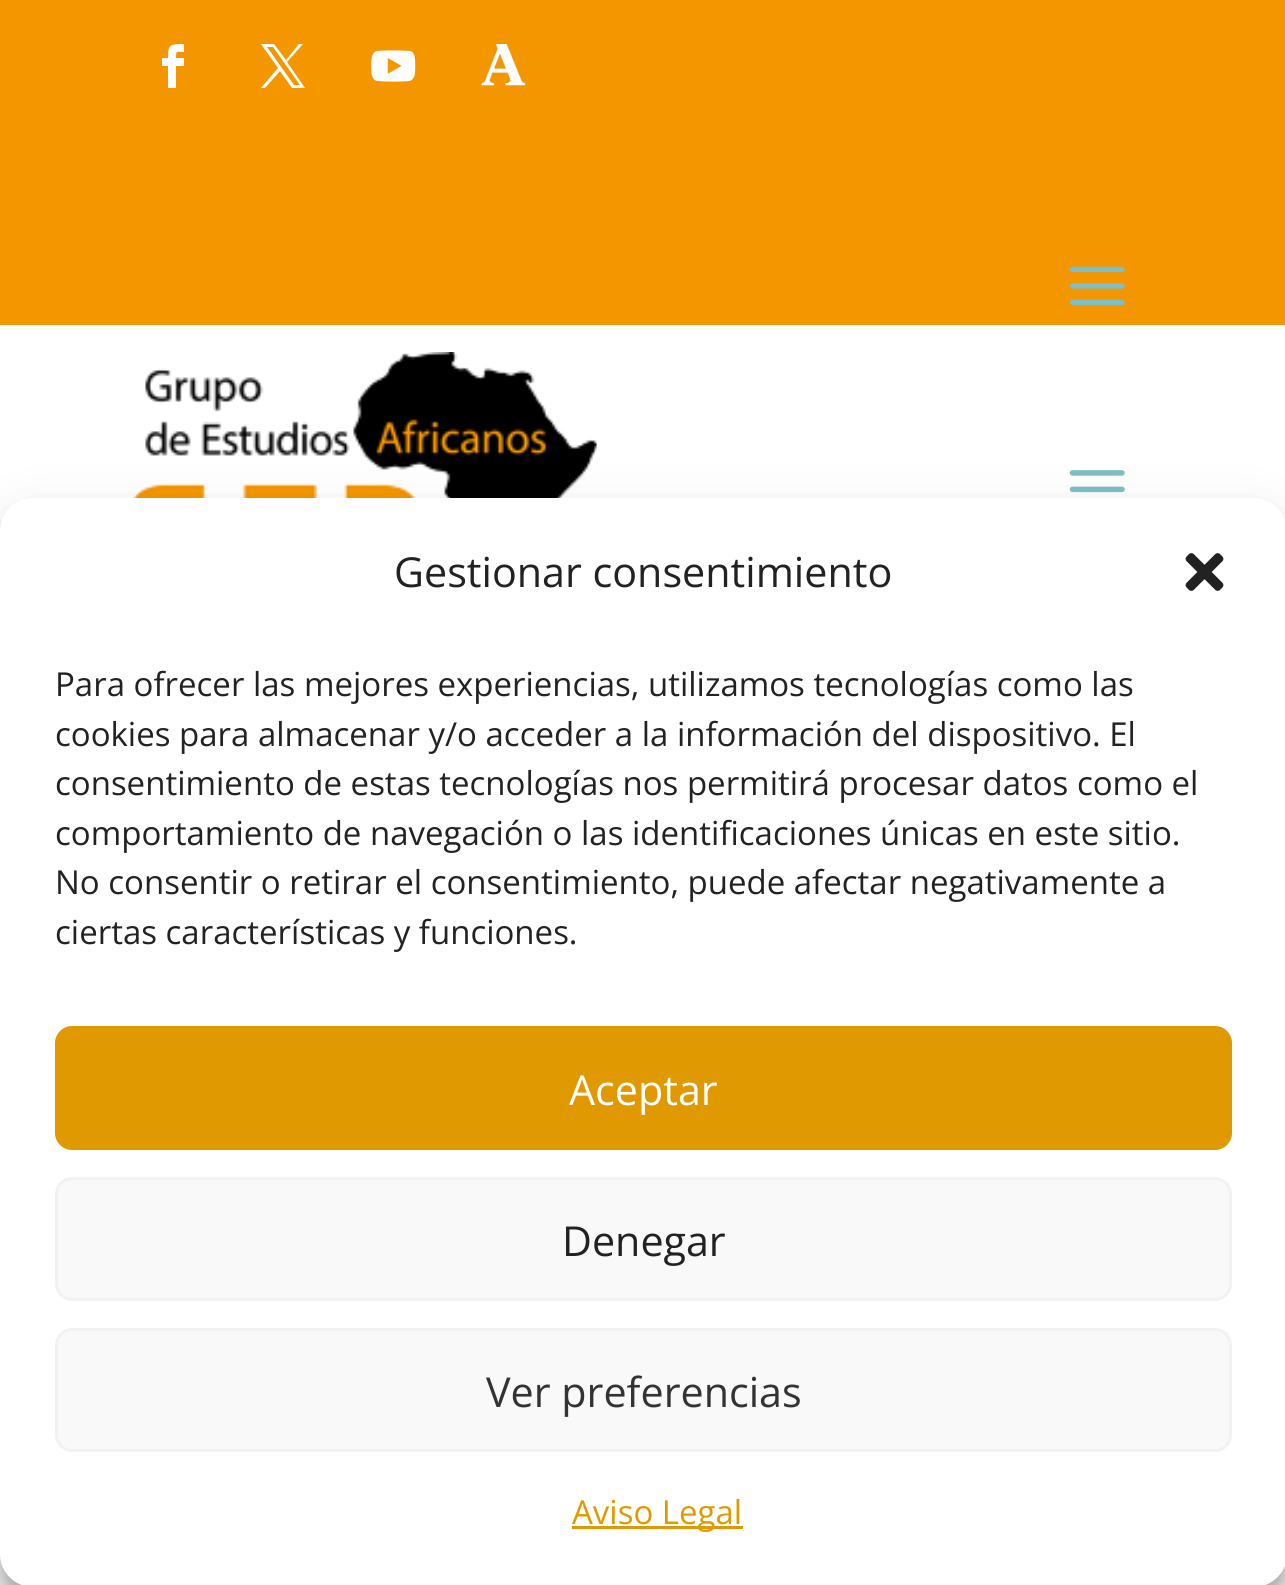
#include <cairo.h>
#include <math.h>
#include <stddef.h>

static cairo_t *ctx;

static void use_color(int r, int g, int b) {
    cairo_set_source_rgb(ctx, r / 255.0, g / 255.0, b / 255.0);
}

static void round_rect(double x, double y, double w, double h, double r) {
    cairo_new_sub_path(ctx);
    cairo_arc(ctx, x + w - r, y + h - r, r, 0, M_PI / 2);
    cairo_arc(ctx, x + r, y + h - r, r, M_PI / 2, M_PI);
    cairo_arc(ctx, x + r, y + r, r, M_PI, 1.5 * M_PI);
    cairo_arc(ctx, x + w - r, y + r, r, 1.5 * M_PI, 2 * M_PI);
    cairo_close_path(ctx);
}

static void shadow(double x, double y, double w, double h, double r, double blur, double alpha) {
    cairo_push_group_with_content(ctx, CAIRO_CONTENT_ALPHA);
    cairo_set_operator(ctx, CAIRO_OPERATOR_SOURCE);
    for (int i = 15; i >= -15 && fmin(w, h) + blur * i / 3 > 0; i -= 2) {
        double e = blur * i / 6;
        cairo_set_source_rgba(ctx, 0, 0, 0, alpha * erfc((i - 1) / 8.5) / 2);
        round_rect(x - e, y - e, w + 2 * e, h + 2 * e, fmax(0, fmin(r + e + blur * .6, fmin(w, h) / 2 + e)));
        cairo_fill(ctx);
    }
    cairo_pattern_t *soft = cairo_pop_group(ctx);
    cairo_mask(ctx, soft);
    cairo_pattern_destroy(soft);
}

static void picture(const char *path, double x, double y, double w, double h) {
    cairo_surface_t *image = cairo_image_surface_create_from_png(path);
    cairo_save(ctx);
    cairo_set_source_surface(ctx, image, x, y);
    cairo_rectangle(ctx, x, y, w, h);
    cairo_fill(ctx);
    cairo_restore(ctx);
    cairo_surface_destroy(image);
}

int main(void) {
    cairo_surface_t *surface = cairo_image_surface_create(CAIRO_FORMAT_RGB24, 1285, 1585);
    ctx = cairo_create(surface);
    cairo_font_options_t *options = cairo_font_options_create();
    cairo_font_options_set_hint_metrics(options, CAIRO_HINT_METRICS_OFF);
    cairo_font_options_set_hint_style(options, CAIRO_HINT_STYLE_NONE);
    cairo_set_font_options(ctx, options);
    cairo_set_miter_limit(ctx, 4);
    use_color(255, 255, 255);
    cairo_paint(ctx);
    use_color(244, 150, 0);
    cairo_rectangle(ctx, 0, 0, 1285, 325);
    cairo_fill(ctx);
    use_color(255, 255, 255);
    cairo_new_path(ctx);
    cairo_move_to(ctx, 168, 88);
    cairo_line_to(ctx, 176, 88);
    cairo_line_to(ctx, 176, 66);
    cairo_line_to(ctx, 184, 66);
    cairo_line_to(ctx, 184, 58);
    cairo_line_to(ctx, 176, 58);
    cairo_curve_to(ctx, 176, 50, 176, 52, 184, 52);
    cairo_line_to(ctx, 184, 44);
    cairo_curve_to(ctx, 170, 44, 168, 44, 168, 58);
    cairo_line_to(ctx, 162, 58);
    cairo_line_to(ctx, 162, 66);
    cairo_line_to(ctx, 168, 66);
    cairo_close_path(ctx);
    cairo_fill(ctx);
    cairo_new_path(ctx);
    cairo_move_to(ctx, 261, 44);
    cairo_line_to(ctx, 278, 68);
    cairo_line_to(ctx, 261, 88);
    cairo_line_to(ctx, 265, 88);
    cairo_line_to(ctx, 280, 71);
    cairo_line_to(ctx, 292, 88);
    cairo_line_to(ctx, 305, 88);
    cairo_line_to(ctx, 287, 62);
    cairo_line_to(ctx, 303, 44);
    cairo_line_to(ctx, 299, 44);
    cairo_line_to(ctx, 286, 60);
    cairo_line_to(ctx, 274, 44);
    cairo_close_path(ctx);
    cairo_move_to(ctx, 267, 47);
    cairo_line_to(ctx, 273, 47);
    cairo_line_to(ctx, 300, 85);
    cairo_line_to(ctx, 294, 85);
    cairo_close_path(ctx);
    cairo_fill(ctx);
    picture("img1.png", 371, 50, 45, 32);
    picture("img2.png", 481, 44, 45, 42);
    picture("img3.png", 1069, 266, 56, 40);
    picture("img4.png", 132, 352, 465, 146);
    picture("img5.png", 1069, 470, 56, 23);
    use_color(0, 0, 0);
    shadow(0, 514, 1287, 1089, 33, 8, 0.23);
    shadow(0, 525, 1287, 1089, 33, 27.5, 0.19);
    use_color(255, 255, 255);
    round_rect(0, 498, 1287, 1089, 33);
    cairo_fill(ctx);
    cairo_select_font_face(ctx, "Open Sans", CAIRO_FONT_SLANT_NORMAL, CAIRO_FONT_WEIGHT_NORMAL);
    cairo_set_font_size(ctx, 41.25);
    use_color(34, 34, 34);
    cairo_move_to(ctx, 394, 587);
    cairo_show_text(ctx, "Gestionar consentimiento");
    picture("img6.png", 1185, 553, 39, 38);
    cairo_set_font_size(ctx, 33);
    cairo_move_to(ctx, 55, 696);
    cairo_show_text(ctx, "Para ofrecer las mejores experiencias, utilizamos tecnologías como las");
    cairo_move_to(ctx, 55, 746);
    cairo_show_text(ctx, "cookies para almacenar y/o acceder a la información del dispositivo. El");
    cairo_move_to(ctx, 55, 795);
    cairo_show_text(ctx, "consentimiento de estas tecnologías nos permitirá procesar datos como el");
    cairo_move_to(ctx, 55, 845);
    cairo_show_text(ctx, "comportamiento de navegación o las identificaciones únicas en este sitio.");
    cairo_move_to(ctx, 55, 894);
    cairo_show_text(ctx, "No consentir o retirar el consentimiento, puede afectar negativamente a");
    cairo_move_to(ctx, 55, 944);
    cairo_show_text(ctx, "ciertas características y funciones.");
    use_color(224, 153, 0);
    round_rect(56.5, 1027.5, 1174, 121, 15.5);
    cairo_fill_preserve(ctx);
    cairo_set_line_width(ctx, 3);
    cairo_stroke(ctx);
    cairo_set_font_size(ctx, 41.25);
    use_color(255, 255, 255);
    cairo_move_to(ctx, 569, 1105);
    cairo_show_text(ctx, "Aceptar");
    use_color(249, 249, 249);
    round_rect(56.5, 1178.5, 1174, 121, 15.5);
    cairo_fill_preserve(ctx);
    use_color(242, 242, 242);
    cairo_stroke(ctx);
    use_color(34, 34, 34);
    cairo_move_to(ctx, 562, 1256);
    cairo_show_text(ctx, "Denegar");
    use_color(249, 249, 249);
    round_rect(56.5, 1329.5, 1174, 121, 15.5);
    cairo_fill_preserve(ctx);
    use_color(242, 242, 242);
    cairo_stroke(ctx);
    use_color(51, 51, 51);
    cairo_move_to(ctx, 486, 1407);
    cairo_show_text(ctx, "Ver preferencias");
    use_color(224, 153, 0);
    cairo_rectangle(ctx, 572, 1526, 171, 3);
    cairo_fill(ctx);
    cairo_set_font_size(ctx, 33);
    cairo_move_to(ctx, 572, 1524);
    cairo_show_text(ctx, "Aviso Legal");
    cairo_surface_write_to_png(surface, "result.png");
    cairo_font_options_destroy(options);
    cairo_destroy(ctx);
    cairo_surface_destroy(surface);
    return 0;
}
